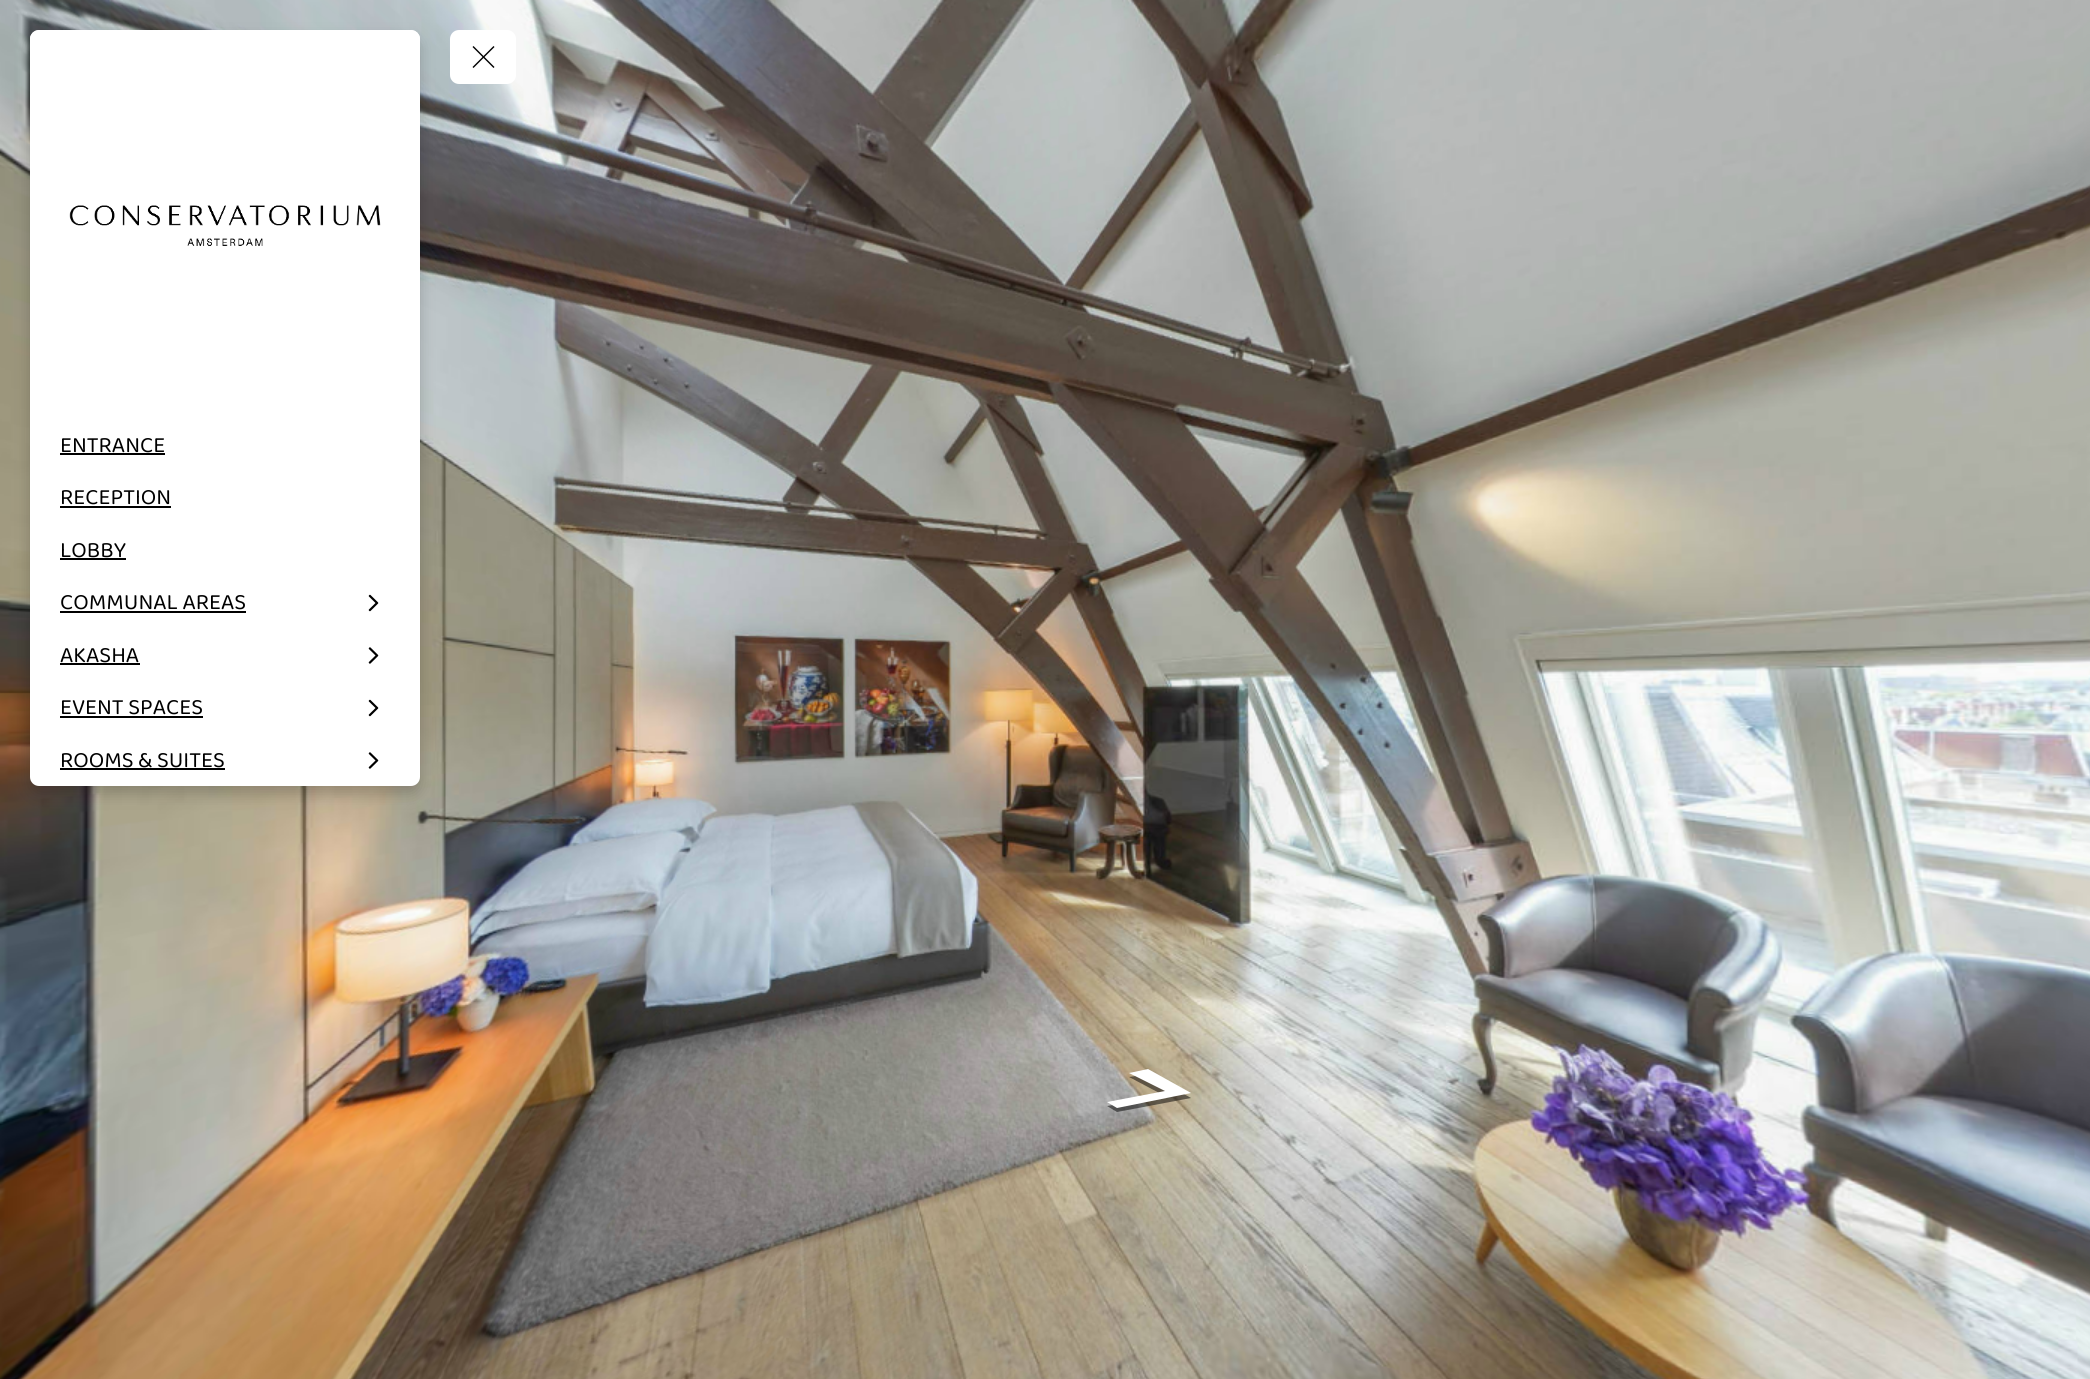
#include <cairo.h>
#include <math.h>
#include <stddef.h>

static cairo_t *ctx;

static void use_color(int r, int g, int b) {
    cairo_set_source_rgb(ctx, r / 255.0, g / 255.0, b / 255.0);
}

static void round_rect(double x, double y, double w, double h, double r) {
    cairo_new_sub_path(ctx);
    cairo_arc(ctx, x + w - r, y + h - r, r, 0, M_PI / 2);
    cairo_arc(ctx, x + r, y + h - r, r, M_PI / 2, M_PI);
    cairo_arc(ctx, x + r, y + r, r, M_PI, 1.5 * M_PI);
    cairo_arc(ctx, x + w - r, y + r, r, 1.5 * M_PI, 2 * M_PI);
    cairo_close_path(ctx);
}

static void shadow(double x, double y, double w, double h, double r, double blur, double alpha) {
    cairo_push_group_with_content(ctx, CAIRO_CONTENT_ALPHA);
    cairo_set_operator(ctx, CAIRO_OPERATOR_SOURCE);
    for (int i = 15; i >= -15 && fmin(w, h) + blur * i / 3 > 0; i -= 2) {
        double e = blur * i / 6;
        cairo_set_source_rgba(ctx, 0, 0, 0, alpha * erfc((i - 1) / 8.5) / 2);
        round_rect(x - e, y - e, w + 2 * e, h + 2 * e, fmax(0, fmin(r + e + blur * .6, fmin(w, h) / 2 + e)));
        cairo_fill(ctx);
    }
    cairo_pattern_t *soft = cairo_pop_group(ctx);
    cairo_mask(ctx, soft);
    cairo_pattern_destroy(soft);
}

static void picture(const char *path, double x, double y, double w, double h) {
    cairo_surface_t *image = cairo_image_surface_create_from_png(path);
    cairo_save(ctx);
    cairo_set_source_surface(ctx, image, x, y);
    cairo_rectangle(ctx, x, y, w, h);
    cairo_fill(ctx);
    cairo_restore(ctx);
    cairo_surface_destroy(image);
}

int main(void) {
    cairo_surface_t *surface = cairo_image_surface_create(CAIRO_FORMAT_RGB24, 2090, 1379);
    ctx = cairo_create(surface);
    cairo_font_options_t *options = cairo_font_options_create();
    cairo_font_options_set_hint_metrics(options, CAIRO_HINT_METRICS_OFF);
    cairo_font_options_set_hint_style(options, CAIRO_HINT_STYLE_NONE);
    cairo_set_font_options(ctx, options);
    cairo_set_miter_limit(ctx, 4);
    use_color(255, 255, 255);
    cairo_paint(ctx);
    picture("img1.png", 0, 0, 2090, 1379);
    cairo_set_source_rgba(ctx, 0, 0, 0, 0.5);
    cairo_set_fill_rule(ctx, CAIRO_FILL_RULE_EVEN_ODD);
    cairo_new_path(ctx);
    cairo_move_to(ctx, 1191, 1098);
    cairo_line_to(ctx, 1117, 1112);
    cairo_line_to(ctx, 1107, 1106);
    cairo_line_to(ctx, 1165, 1096);
    cairo_line_to(ctx, 1129, 1077);
    cairo_line_to(ctx, 1148, 1074);
    cairo_fill(ctx);
    use_color(255, 255, 255);
    cairo_new_path(ctx);
    cairo_move_to(ctx, 1191, 1093);
    cairo_line_to(ctx, 1117, 1108);
    cairo_line_to(ctx, 1107, 1102);
    cairo_line_to(ctx, 1165, 1091);
    cairo_line_to(ctx, 1129, 1073);
    cairo_line_to(ctx, 1148, 1069);
    cairo_fill(ctx);
    use_color(0, 0, 0);
    shadow(30, 38, 390, 756, 9, 7.5, 0.2);
    use_color(255, 255, 255);
    round_rect(30, 30, 390, 756, 9);
    cairo_fill(ctx);
    picture("img2.png", 30, 30, 390, 216);
    round_rect(450, 30, 66, 54, 9);
    cairo_fill(ctx);
    use_color(0, 0, 0);
    cairo_set_fill_rule(ctx, CAIRO_FILL_RULE_WINDING);
    cairo_new_path(ctx);
    cairo_move_to(ctx, 473.5, 46);
    cairo_line_to(ctx, 494.5, 67);
    cairo_line_to(ctx, 493.5, 68);
    cairo_line_to(ctx, 472.5, 47);
    cairo_close_path(ctx);
    cairo_fill(ctx);
    cairo_new_path(ctx);
    cairo_move_to(ctx, 472.5, 67);
    cairo_line_to(ctx, 493.5, 46);
    cairo_line_to(ctx, 494.5, 47);
    cairo_line_to(ctx, 473.5, 68);
    cairo_close_path(ctx);
    cairo_fill(ctx);
    cairo_select_font_face(ctx, "Baloo 2", CAIRO_FONT_SLANT_NORMAL, CAIRO_FONT_WEIGHT_NORMAL);
    cairo_set_font_size(ctx, 22.5);
    cairo_move_to(ctx, 60, 452);
    cairo_show_text(ctx, "ENTRANCE");
    cairo_rectangle(ctx, 60, 453, 105, 2);
    cairo_fill(ctx);
    cairo_move_to(ctx, 60, 504);
    cairo_show_text(ctx, "RECEPTION");
    cairo_rectangle(ctx, 60, 506, 111, 2);
    cairo_fill(ctx);
    cairo_move_to(ctx, 60, 557);
    cairo_show_text(ctx, "LOBBY");
    cairo_rectangle(ctx, 60, 558, 66, 2);
    cairo_fill(ctx);
    cairo_move_to(ctx, 60, 609);
    cairo_show_text(ctx, "COMMUNAL AREAS");
    cairo_rectangle(ctx, 60, 611, 186, 2);
    cairo_fill(ctx);
    picture("img3.png", 368, 594, 11, 18);
    cairo_move_to(ctx, 60, 662);
    cairo_show_text(ctx, "AKASHA");
    cairo_rectangle(ctx, 60, 663, 80, 2);
    cairo_fill(ctx);
    picture("img4.png", 368, 647, 11, 17);
    cairo_move_to(ctx, 60, 714);
    cairo_show_text(ctx, "EVENT SPACES");
    cairo_rectangle(ctx, 60, 716, 143, 2);
    cairo_fill(ctx);
    picture("img3.png", 368, 699, 11, 18);
    cairo_move_to(ctx, 60, 767);
    cairo_show_text(ctx, "ROOMS & SUITES");
    cairo_rectangle(ctx, 60, 768, 165, 2);
    cairo_fill(ctx);
    picture("img4.png", 368, 752, 11, 17);
    cairo_surface_write_to_png(surface, "result.png");
    cairo_font_options_destroy(options);
    cairo_destroy(ctx);
    cairo_surface_destroy(surface);
    return 0;
}
